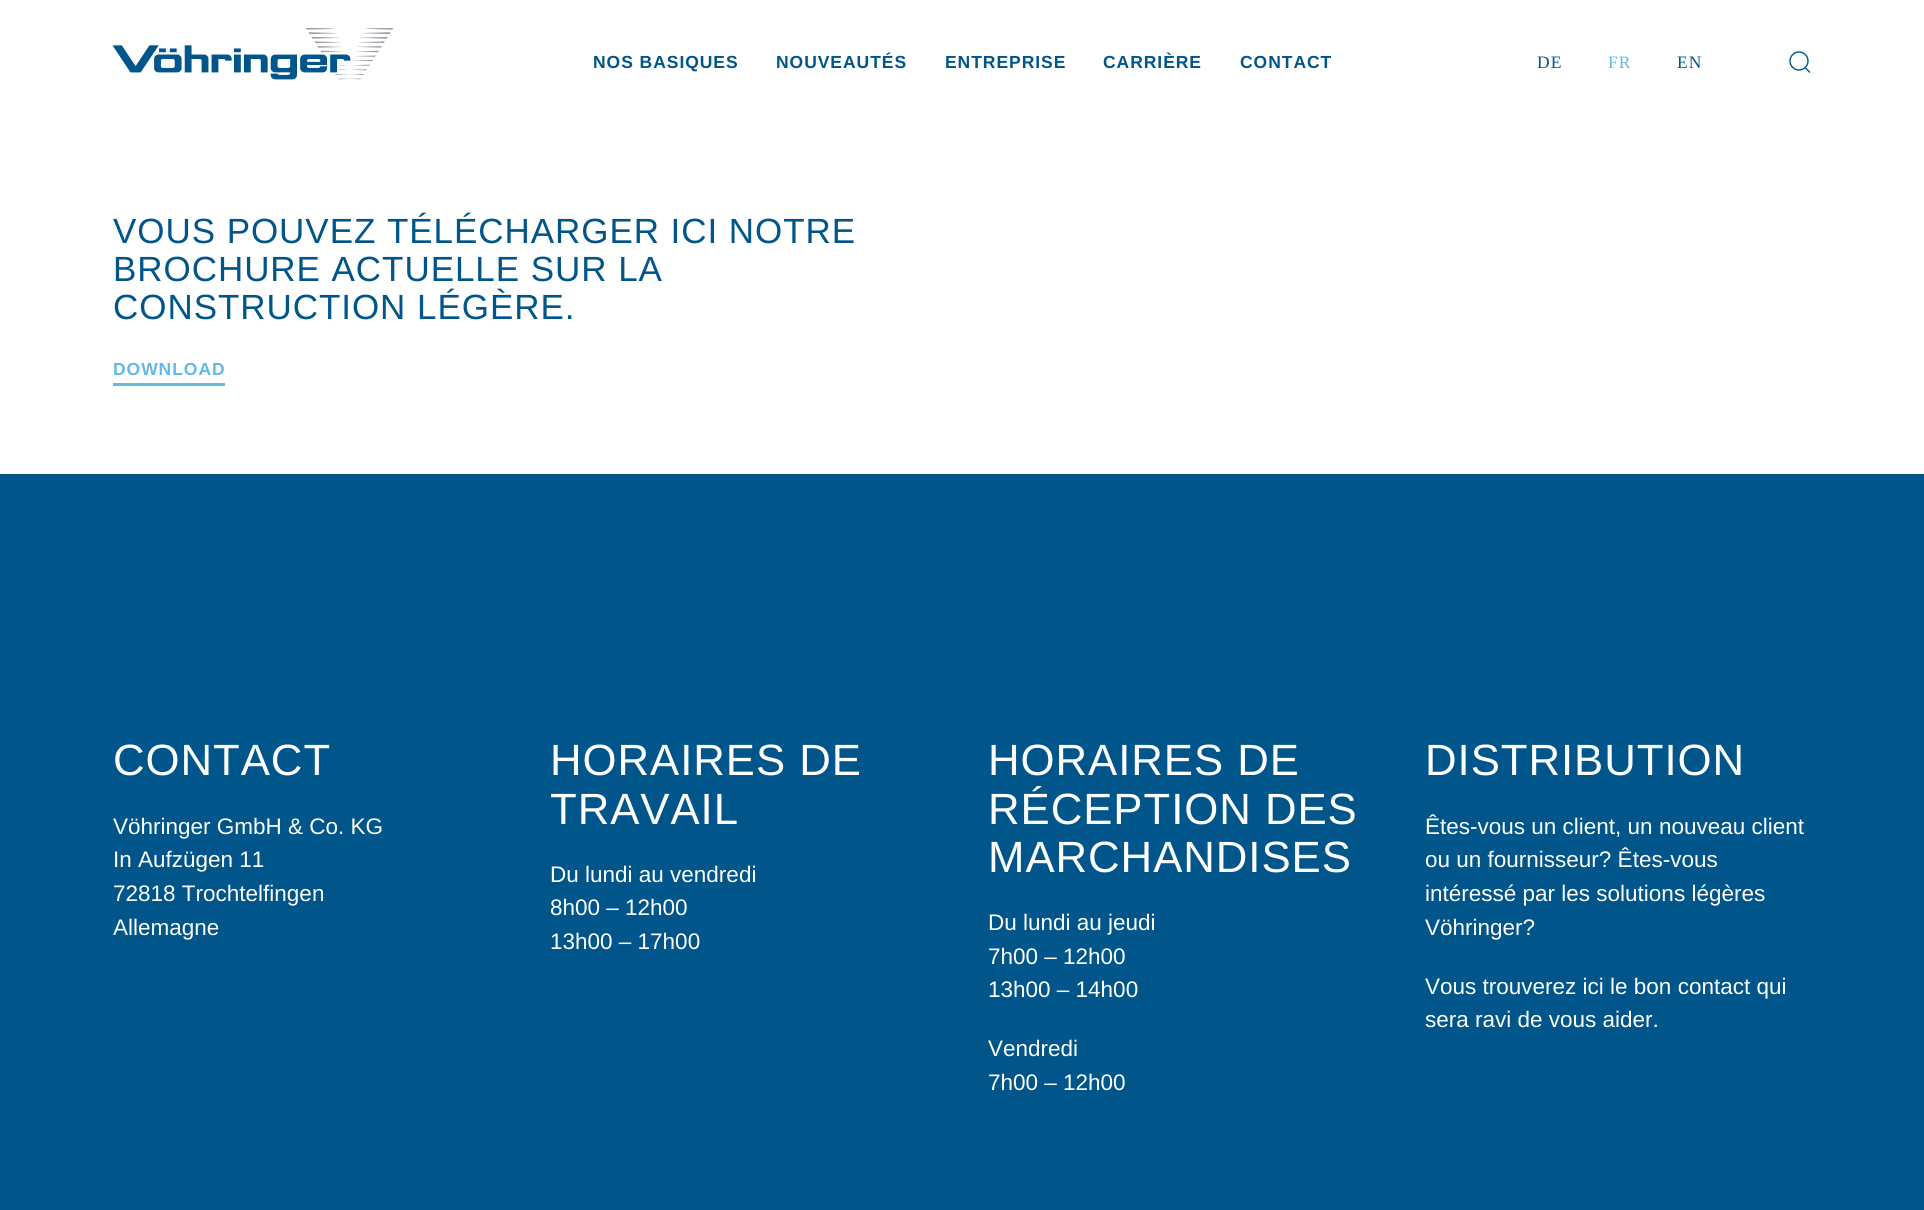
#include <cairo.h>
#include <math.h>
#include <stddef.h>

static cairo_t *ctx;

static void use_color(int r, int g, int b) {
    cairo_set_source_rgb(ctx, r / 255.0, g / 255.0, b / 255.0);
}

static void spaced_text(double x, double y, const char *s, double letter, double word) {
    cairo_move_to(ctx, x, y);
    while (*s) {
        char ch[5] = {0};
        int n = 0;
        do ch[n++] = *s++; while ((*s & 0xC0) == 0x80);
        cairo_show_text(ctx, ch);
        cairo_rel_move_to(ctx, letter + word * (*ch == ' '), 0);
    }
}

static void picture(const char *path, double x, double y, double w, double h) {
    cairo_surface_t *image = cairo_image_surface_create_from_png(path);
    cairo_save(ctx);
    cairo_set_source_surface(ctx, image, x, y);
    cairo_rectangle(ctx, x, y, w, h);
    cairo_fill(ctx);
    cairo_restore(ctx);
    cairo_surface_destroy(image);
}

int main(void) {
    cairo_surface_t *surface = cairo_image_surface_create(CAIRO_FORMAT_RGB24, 1924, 1210);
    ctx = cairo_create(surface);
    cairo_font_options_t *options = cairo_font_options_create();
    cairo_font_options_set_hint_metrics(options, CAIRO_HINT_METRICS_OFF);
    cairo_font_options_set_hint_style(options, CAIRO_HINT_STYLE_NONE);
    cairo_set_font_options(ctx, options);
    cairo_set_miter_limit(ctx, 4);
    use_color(255, 255, 255);
    cairo_paint(ctx);
    picture("img1.png", 113, 28, 281, 52);
    cairo_select_font_face(ctx, "Liberation Sans", CAIRO_FONT_SLANT_NORMAL, CAIRO_FONT_WEIGHT_BOLD);
    cairo_set_font_size(ctx, 17.5);
    use_color(0, 86, 139);
    spaced_text(593, 68, "NOS BASIQUES", 0.95, 0);
    spaced_text(776, 68, "NOUVEAUTÉS", 0.95, 0);
    spaced_text(945, 68, "ENTREPRISE", 0.95, 0);
    spaced_text(1103, 68, "CARRIÈRE", 0.95, 0);
    spaced_text(1240, 68, "CONTACT", 0.95, 0);
    cairo_select_font_face(ctx, "Liberation Serif", CAIRO_FONT_SLANT_NORMAL, CAIRO_FONT_WEIGHT_NORMAL);
    spaced_text(1537, 68, "DE", 1, 0);
    use_color(99, 185, 233);
    spaced_text(1608, 68, "FR", 1, 0);
    use_color(0, 86, 139);
    spaced_text(1677, 68, "EN", 1, 0);
    cairo_new_path(ctx);
    cairo_arc(ctx, 1799, 61, 9, 0, 2 * M_PI);
    cairo_set_line_width(ctx, 1.4);
    cairo_stroke(ctx);
    cairo_new_path(ctx);
    cairo_move_to(ctx, 1805, 67.5);
    cairo_line_to(ctx, 1810, 72.5);
    cairo_close_path(ctx);
    cairo_stroke(ctx);
    cairo_select_font_face(ctx, "Liberation Sans", CAIRO_FONT_SLANT_NORMAL, CAIRO_FONT_WEIGHT_NORMAL);
    cairo_set_font_size(ctx, 35);
    spaced_text(113, 243, "VOUS POUVEZ TÉLÉCHARGER ICI NOTRE", 0.95, 0);
    spaced_text(113, 281, "BROCHURE ACTUELLE SUR LA", 0.95, 0);
    spaced_text(113, 319, "CONSTRUCTION LÉGÈRE.", 0.95, 0);
    use_color(99, 185, 233);
    cairo_rectangle(ctx, 113, 383, 112, 3);
    cairo_fill(ctx);
    cairo_select_font_face(ctx, "Liberation Sans", CAIRO_FONT_SLANT_NORMAL, CAIRO_FONT_WEIGHT_BOLD);
    cairo_set_font_size(ctx, 17.5);
    spaced_text(113, 375, "DOWNLOAD", 0.95, 0);
    use_color(0, 86, 139);
    cairo_rectangle(ctx, 0, 474, 1924, 736);
    cairo_fill(ctx);
    cairo_select_font_face(ctx, "Liberation Sans", CAIRO_FONT_SLANT_NORMAL, CAIRO_FONT_WEIGHT_NORMAL);
    cairo_set_font_size(ctx, 43.75);
    use_color(255, 255, 255);
    spaced_text(113, 775, "CONTACT", 0.95, 0);
    cairo_set_font_size(ctx, 22.5);
    cairo_move_to(ctx, 113, 834);
    cairo_show_text(ctx, "Vöhringer GmbH & Co. KG");
    cairo_move_to(ctx, 113, 867);
    cairo_show_text(ctx, "In Aufzügen 11");
    cairo_move_to(ctx, 113, 901);
    cairo_show_text(ctx, "72818 Trochtelfingen");
    cairo_move_to(ctx, 113, 935);
    cairo_show_text(ctx, "Allemagne");
    cairo_set_font_size(ctx, 43.75);
    spaced_text(550, 775, "HORAIRES DE", 0.95, 0);
    spaced_text(550, 824, "TRAVAIL", 0.95, 0);
    cairo_set_font_size(ctx, 22.5);
    cairo_move_to(ctx, 550, 882);
    cairo_show_text(ctx, "Du lundi au vendredi");
    cairo_move_to(ctx, 550, 915);
    cairo_show_text(ctx, "8h00 – 12h00");
    cairo_move_to(ctx, 550, 949);
    cairo_show_text(ctx, "13h00 – 17h00");
    cairo_set_font_size(ctx, 43.75);
    spaced_text(988, 775, "HORAIRES DE", 0.95, 0);
    spaced_text(988, 824, "RÉCEPTION DES", 0.95, 0);
    spaced_text(988, 872, "MARCHANDISES", 0.95, 0);
    cairo_set_font_size(ctx, 22.5);
    cairo_move_to(ctx, 988, 930);
    cairo_show_text(ctx, "Du lundi au jeudi");
    cairo_move_to(ctx, 988, 964);
    cairo_show_text(ctx, "7h00 – 12h00");
    cairo_move_to(ctx, 988, 997);
    cairo_show_text(ctx, "13h00 – 14h00");
    cairo_move_to(ctx, 988, 1056);
    cairo_show_text(ctx, "Vendredi");
    cairo_move_to(ctx, 988, 1090);
    cairo_show_text(ctx, "7h00 – 12h00");
    cairo_set_font_size(ctx, 43.75);
    spaced_text(1425, 775, "DISTRIBUTION", 0.95, 0);
    cairo_set_font_size(ctx, 22.5);
    cairo_move_to(ctx, 1425, 834);
    cairo_show_text(ctx, "Êtes-vous un client, un nouveau client");
    cairo_move_to(ctx, 1425, 867);
    cairo_show_text(ctx, "ou un fournisseur? Êtes-vous");
    cairo_move_to(ctx, 1425, 901);
    cairo_show_text(ctx, "intéressé par les solutions légères");
    cairo_move_to(ctx, 1425, 935);
    cairo_show_text(ctx, "Vöhringer?");
    cairo_move_to(ctx, 1425, 994);
    cairo_show_text(ctx, "Vous trouverez ici le bon contact qui");
    cairo_move_to(ctx, 1425, 1027);
    cairo_show_text(ctx, "sera ravi de vous aider.");
    cairo_surface_write_to_png(surface, "result.png");
    cairo_font_options_destroy(options);
    cairo_destroy(ctx);
    cairo_surface_destroy(surface);
    return 0;
}
